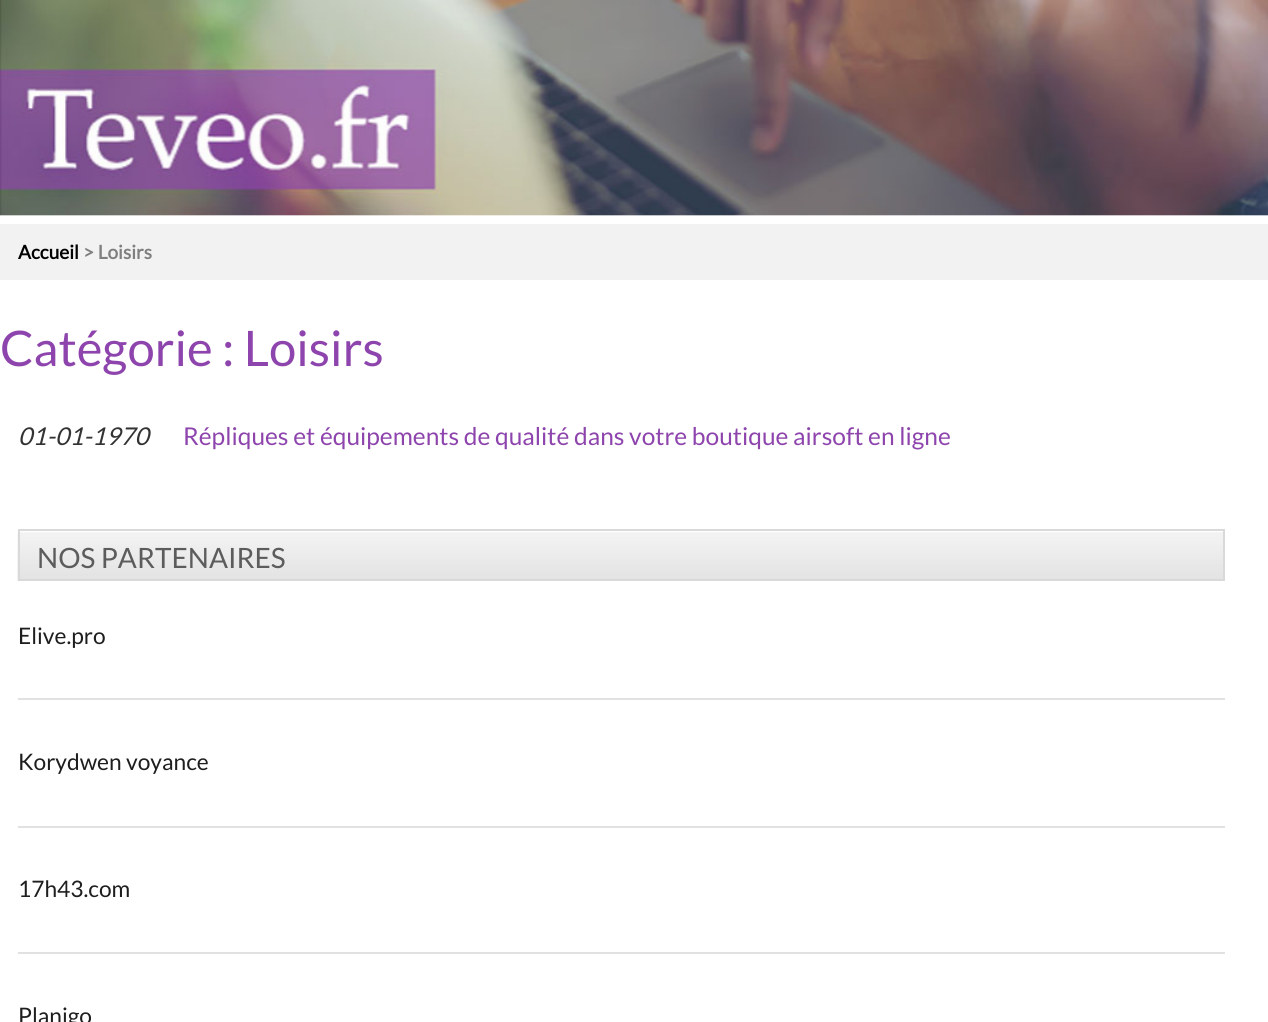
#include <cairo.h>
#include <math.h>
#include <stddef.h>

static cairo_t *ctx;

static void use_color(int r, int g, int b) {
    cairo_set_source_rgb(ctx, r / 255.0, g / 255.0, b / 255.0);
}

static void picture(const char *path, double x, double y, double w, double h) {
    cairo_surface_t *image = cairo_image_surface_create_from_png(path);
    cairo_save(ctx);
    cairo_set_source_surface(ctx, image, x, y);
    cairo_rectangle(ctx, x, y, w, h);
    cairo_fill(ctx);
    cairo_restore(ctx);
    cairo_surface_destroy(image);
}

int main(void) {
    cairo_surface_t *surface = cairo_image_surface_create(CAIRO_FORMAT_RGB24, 1268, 1022);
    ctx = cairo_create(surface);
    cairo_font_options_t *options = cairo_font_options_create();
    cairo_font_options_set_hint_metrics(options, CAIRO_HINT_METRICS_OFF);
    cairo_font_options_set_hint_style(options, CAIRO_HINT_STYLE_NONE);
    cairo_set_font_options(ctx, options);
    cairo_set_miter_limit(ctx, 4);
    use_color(255, 255, 255);
    cairo_paint(ctx);
    picture("img1.png", 0, 0, 1268, 216);
    use_color(242, 242, 242);
    cairo_rectangle(ctx, 0, 224, 1268, 56);
    cairo_fill(ctx);
    cairo_select_font_face(ctx, "Lato", CAIRO_FONT_SLANT_NORMAL, CAIRO_FONT_WEIGHT_BOLD);
    cairo_set_font_size(ctx, 19);
    use_color(0, 0, 0);
    cairo_move_to(ctx, 18, 259);
    cairo_show_text(ctx, "Accueil");
    use_color(127, 127, 127);
    cairo_move_to(ctx, 83, 259);
    cairo_show_text(ctx, "> Loisirs");
    cairo_select_font_face(ctx, "Lato", CAIRO_FONT_SLANT_NORMAL, CAIRO_FONT_WEIGHT_NORMAL);
    cairo_set_font_size(ctx, 49);
    use_color(142, 68, 173);
    cairo_move_to(ctx, 0, 366);
    cairo_show_text(ctx, "Catégorie : Loisirs");
    cairo_select_font_face(ctx, "Lato", CAIRO_FONT_SLANT_ITALIC, CAIRO_FONT_WEIGHT_NORMAL);
    cairo_set_font_size(ctx, 24.5);
    use_color(51, 51, 51);
    cairo_move_to(ctx, 18, 445);
    cairo_show_text(ctx, "01-01-1970");
    cairo_select_font_face(ctx, "Lato", CAIRO_FONT_SLANT_NORMAL, CAIRO_FONT_WEIGHT_NORMAL);
    use_color(142, 68, 173);
    cairo_move_to(ctx, 183, 445);
    cairo_show_text(ctx, "Répliques et équipements de qualité dans votre boutique airsoft en ligne");
    picture("img2.png", 17, 532, 1206, 49);
    cairo_rectangle(ctx, 19, 530, 1205, 50);
    use_color(217, 217, 217);
    cairo_stroke(ctx);
    cairo_set_font_size(ctx, 28);
    use_color(92, 92, 92);
    cairo_move_to(ctx, 37, 568);
    cairo_show_text(ctx, "NOS PARTENAIRES");
    cairo_set_font_size(ctx, 22.75);
    use_color(30, 30, 30);
    cairo_move_to(ctx, 18, 644);
    cairo_show_text(ctx, "Elive.pro");
    use_color(225, 225, 225);
    cairo_rectangle(ctx, 18, 698, 1207, 2);
    cairo_fill(ctx);
    use_color(30, 30, 30);
    cairo_move_to(ctx, 18, 770);
    cairo_show_text(ctx, "Korydwen voyance");
    use_color(225, 225, 225);
    cairo_rectangle(ctx, 18, 826, 1207, 2);
    cairo_fill(ctx);
    use_color(30, 30, 30);
    cairo_move_to(ctx, 18, 897);
    cairo_show_text(ctx, "17h43.com");
    use_color(225, 225, 225);
    cairo_rectangle(ctx, 18, 952, 1207, 2);
    cairo_fill(ctx);
    use_color(30, 30, 30);
    cairo_move_to(ctx, 18, 1024);
    cairo_show_text(ctx, "Planigo");
    cairo_surface_write_to_png(surface, "result.png");
    cairo_font_options_destroy(options);
    cairo_destroy(ctx);
    cairo_surface_destroy(surface);
    return 0;
}
